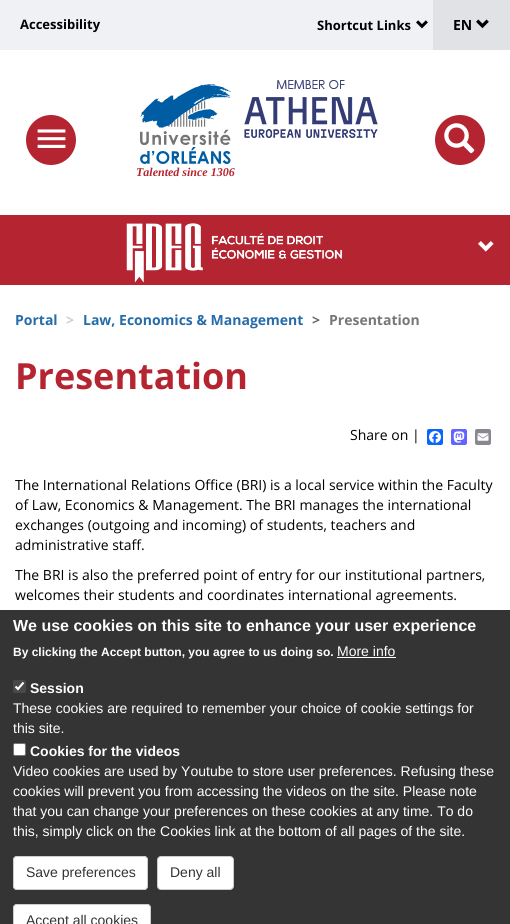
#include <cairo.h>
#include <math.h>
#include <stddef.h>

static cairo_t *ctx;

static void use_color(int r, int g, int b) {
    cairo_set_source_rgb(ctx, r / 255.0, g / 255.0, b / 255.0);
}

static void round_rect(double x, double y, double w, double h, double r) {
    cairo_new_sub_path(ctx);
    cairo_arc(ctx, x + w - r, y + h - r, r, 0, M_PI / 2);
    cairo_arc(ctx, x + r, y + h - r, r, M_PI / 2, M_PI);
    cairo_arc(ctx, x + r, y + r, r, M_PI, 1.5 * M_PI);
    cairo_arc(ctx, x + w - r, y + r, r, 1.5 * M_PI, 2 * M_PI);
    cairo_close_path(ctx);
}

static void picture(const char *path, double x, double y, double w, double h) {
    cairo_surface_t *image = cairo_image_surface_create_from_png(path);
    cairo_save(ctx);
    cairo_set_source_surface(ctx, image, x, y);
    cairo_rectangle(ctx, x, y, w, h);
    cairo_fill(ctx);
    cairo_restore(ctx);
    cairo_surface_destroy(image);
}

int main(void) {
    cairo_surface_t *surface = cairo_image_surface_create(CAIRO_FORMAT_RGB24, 510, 924);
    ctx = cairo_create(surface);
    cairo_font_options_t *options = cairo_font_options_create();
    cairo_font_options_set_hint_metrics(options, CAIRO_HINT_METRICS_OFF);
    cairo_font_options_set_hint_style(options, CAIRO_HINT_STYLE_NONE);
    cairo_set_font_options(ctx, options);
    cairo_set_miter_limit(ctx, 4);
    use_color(255, 255, 255);
    cairo_paint(ctx);
    use_color(239, 241, 245);
    cairo_rectangle(ctx, 0, 0, 433, 50);
    cairo_fill(ctx);
    cairo_select_font_face(ctx, "Open Sans", CAIRO_FONT_SLANT_NORMAL, CAIRO_FONT_WEIGHT_BOLD);
    cairo_set_font_size(ctx, 13);
    use_color(0, 0, 0);
    cairo_move_to(ctx, 20, 29);
    cairo_show_text(ctx, "Accessibility");
    cairo_move_to(ctx, 317, 30);
    cairo_show_text(ctx, "Shortcut Links");
    picture("img1.png", 416, 20, 12, 9);
    use_color(224, 226, 229);
    cairo_rectangle(ctx, 433, 0, 77, 50);
    cairo_fill(ctx);
    cairo_set_font_size(ctx, 14);
    use_color(0, 0, 0);
    cairo_move_to(ctx, 453, 30);
    cairo_show_text(ctx, "EN");
    picture("img2.png", 476, 19, 13, 10);
    use_color(181, 37, 49);
    cairo_arc(ctx, 51, 140, 25, 0, 2 * M_PI);
    cairo_fill(ctx);
    picture("img3.png", 37, 129, 29, 19);
    cairo_arc(ctx, 460, 140, 25, 0, 2 * M_PI);
    cairo_fill(ctx);
    picture("img4.png", 444, 123, 31, 31);
    picture("img5.png", 244, 80, 134, 58);
    picture("img6.png", 140, 84, 91, 80);
    cairo_select_font_face(ctx, "Liberation Serif", CAIRO_FONT_SLANT_ITALIC, CAIRO_FONT_WEIGHT_BOLD);
    cairo_set_font_size(ctx, 12);
    cairo_move_to(ctx, 136, 176);
    cairo_show_text(ctx, "Talented since 1306");
    cairo_rectangle(ctx, 0, 215, 510, 70);
    cairo_fill(ctx);
    picture("img7.png", 126, 223, 216, 60);
    picture("img8.png", 478, 241, 16, 11);
    cairo_select_font_face(ctx, "Open Sans", CAIRO_FONT_SLANT_NORMAL, CAIRO_FONT_WEIGHT_BOLD);
    cairo_set_font_size(ctx, 14);
    use_color(37, 108, 169);
    cairo_move_to(ctx, 15, 325);
    cairo_show_text(ctx, "Portal");
    use_color(204, 204, 204);
    cairo_move_to(ctx, 66, 325);
    cairo_show_text(ctx, ">");
    use_color(37, 108, 169);
    cairo_move_to(ctx, 83, 325);
    cairo_show_text(ctx, "Law, Economics & Management");
    use_color(105, 102, 104);
    cairo_move_to(ctx, 312, 325);
    cairo_show_text(ctx, ">");
    use_color(119, 119, 119);
    cairo_move_to(ctx, 329, 325);
    cairo_show_text(ctx, "Presentation");
    cairo_set_font_size(ctx, 36);
    use_color(181, 37, 49);
    cairo_move_to(ctx, 15, 389);
    cairo_show_text(ctx, "Presentation");
    cairo_select_font_face(ctx, "Open Sans", CAIRO_FONT_SLANT_NORMAL, CAIRO_FONT_WEIGHT_NORMAL);
    cairo_set_font_size(ctx, 14);
    use_color(0, 0, 0);
    cairo_move_to(ctx, 350, 440);
    cairo_show_text(ctx, "Share on |");
    use_color(8, 102, 255);
    round_rect(427, 429, 16, 16, 2);
    cairo_fill(ctx);
    picture("img9.png", 429, 431, 12, 12);
    use_color(99, 100, 255);
    round_rect(451, 429, 16, 16, 2);
    cairo_fill(ctx);
    picture("img10.png", 453, 431, 12, 12);
    use_color(136, 137, 144);
    round_rect(475, 429, 16, 16, 2);
    cairo_fill(ctx);
    picture("img11.png", 477, 433, 12, 8);
    use_color(0, 0, 0);
    cairo_move_to(ctx, 15, 490);
    cairo_show_text(ctx, "The International Relations Office (BRI) is a local service within the Faculty");
    cairo_move_to(ctx, 15, 510);
    cairo_show_text(ctx, "of Law, Economics & Management. The BRI manages the international");
    cairo_move_to(ctx, 15, 530);
    cairo_show_text(ctx, "exchanges (outgoing and incoming) of students, teachers and");
    cairo_move_to(ctx, 15, 550);
    cairo_show_text(ctx, "administrative staff.");
    cairo_move_to(ctx, 15, 580);
    cairo_show_text(ctx, "The BRI is also the preferred point of entry for our institutional partners,");
    cairo_move_to(ctx, 15, 600);
    cairo_show_text(ctx, "welcomes their students and coordinates international agreements.");
    use_color(53, 52, 53);
    cairo_rectangle(ctx, 0, 610, 510, 314);
    cairo_fill(ctx);
    cairo_select_font_face(ctx, "Liberation Sans", CAIRO_FONT_SLANT_NORMAL, CAIRO_FONT_WEIGHT_BOLD);
    cairo_set_font_size(ctx, 16);
    use_color(255, 255, 255);
    cairo_move_to(ctx, 13, 631);
    cairo_show_text(ctx, "We use cookies on this site to enhance your user experience");
    cairo_set_font_size(ctx, 12);
    cairo_move_to(ctx, 13, 656);
    cairo_show_text(ctx, "By clicking the Accept button, you agree to us doing so.");
    cairo_select_font_face(ctx, "Liberation Sans", CAIRO_FONT_SLANT_NORMAL, CAIRO_FONT_WEIGHT_NORMAL);
    cairo_set_font_size(ctx, 14);
    cairo_move_to(ctx, 337, 656);
    cairo_show_text(ctx, "More info");
    cairo_rectangle(ctx, 337, 657, 59, 1);
    cairo_fill(ctx);
    use_color(73, 72, 73);
    round_rect(13, 680, 13, 13, 2);
    cairo_fill(ctx);
    cairo_new_path(ctx);
    cairo_move_to(ctx, 15.5, 686.5);
    cairo_line_to(ctx, 18, 689);
    cairo_line_to(ctx, 23.5, 682.5);
    use_color(255, 255, 255);
    cairo_set_line_width(ctx, 2.1);
    cairo_stroke(ctx);
    cairo_select_font_face(ctx, "Liberation Sans", CAIRO_FONT_SLANT_NORMAL, CAIRO_FONT_WEIGHT_BOLD);
    cairo_move_to(ctx, 30, 693);
    cairo_show_text(ctx, "Session");
    cairo_select_font_face(ctx, "Liberation Sans", CAIRO_FONT_SLANT_NORMAL, CAIRO_FONT_WEIGHT_NORMAL);
    cairo_move_to(ctx, 13, 713);
    cairo_show_text(ctx, "These cookies are required to remember your choice of cookie settings for");
    cairo_move_to(ctx, 13, 733);
    cairo_show_text(ctx, "this site.");
    round_rect(13.5, 743.5, 12, 12, 1.5);
    cairo_fill_preserve(ctx);
    use_color(118, 118, 118);
    cairo_set_line_width(ctx, 1);
    cairo_stroke(ctx);
    cairo_select_font_face(ctx, "Liberation Sans", CAIRO_FONT_SLANT_NORMAL, CAIRO_FONT_WEIGHT_BOLD);
    use_color(255, 255, 255);
    cairo_move_to(ctx, 30, 756);
    cairo_show_text(ctx, "Cookies for the videos");
    cairo_select_font_face(ctx, "Liberation Sans", CAIRO_FONT_SLANT_NORMAL, CAIRO_FONT_WEIGHT_NORMAL);
    cairo_move_to(ctx, 13, 776);
    cairo_show_text(ctx, "Video cookies are used by Youtube to store user preferences. Refusing these");
    cairo_move_to(ctx, 13, 796);
    cairo_show_text(ctx, "cookies will prevent you from accessing the videos on the site. Please note");
    cairo_move_to(ctx, 13, 816);
    cairo_show_text(ctx, "that you can change your preferences on these cookies at any time. To do");
    cairo_move_to(ctx, 13, 836);
    cairo_show_text(ctx, "this, simply click on the Cookies link at the bottom of all pages of the site.");
    round_rect(13, 856, 135, 34, 4);
    cairo_fill(ctx);
    cairo_new_path(ctx);
    cairo_move_to(ctx, 17, 858);
    cairo_line_to(ctx, 144, 858);
    cairo_curve_to(ctx, 146, 858, 147, 859, 147, 861);
    cairo_curve_to(ctx, 147, 859, 147, 857, 145, 857);
    cairo_line_to(ctx, 16, 857);
    cairo_curve_to(ctx, 14, 857, 14, 859, 14, 861);
    cairo_curve_to(ctx, 14, 859, 15, 858, 17, 858);
    cairo_close_path(ctx);
    cairo_fill(ctx);
    round_rect(13.5, 856.5, 134, 33, 3.5);
    use_color(204, 204, 204);
    cairo_stroke(ctx);
    use_color(51, 51, 51);
    cairo_move_to(ctx, 26, 877);
    cairo_show_text(ctx, "Save preferences");
    use_color(255, 255, 255);
    round_rect(157.5, 856.5, 76, 33, 3.5);
    cairo_fill_preserve(ctx);
    use_color(204, 204, 204);
    cairo_stroke(ctx);
    use_color(51, 51, 51);
    cairo_move_to(ctx, 170, 877);
    cairo_show_text(ctx, "Deny all");
    use_color(255, 255, 255);
    round_rect(13, 904, 138, 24, 4);
    cairo_fill(ctx);
    cairo_new_path(ctx);
    cairo_move_to(ctx, 17, 906);
    cairo_line_to(ctx, 147, 906);
    cairo_curve_to(ctx, 149, 906, 150, 907, 150, 909);
    cairo_curve_to(ctx, 150, 907, 150, 905, 148, 905);
    cairo_line_to(ctx, 16, 905);
    cairo_curve_to(ctx, 14, 905, 14, 907, 14, 909);
    cairo_curve_to(ctx, 14, 907, 15, 906, 17, 906);
    cairo_close_path(ctx);
    cairo_fill(ctx);
    round_rect(13.5, 904.5, 137, 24, 3.5);
    use_color(204, 204, 204);
    cairo_stroke(ctx);
    use_color(51, 51, 51);
    cairo_move_to(ctx, 26, 925);
    cairo_show_text(ctx, "Accept all cookies");
    cairo_surface_write_to_png(surface, "result.png");
    cairo_font_options_destroy(options);
    cairo_destroy(ctx);
    cairo_surface_destroy(surface);
    return 0;
}
